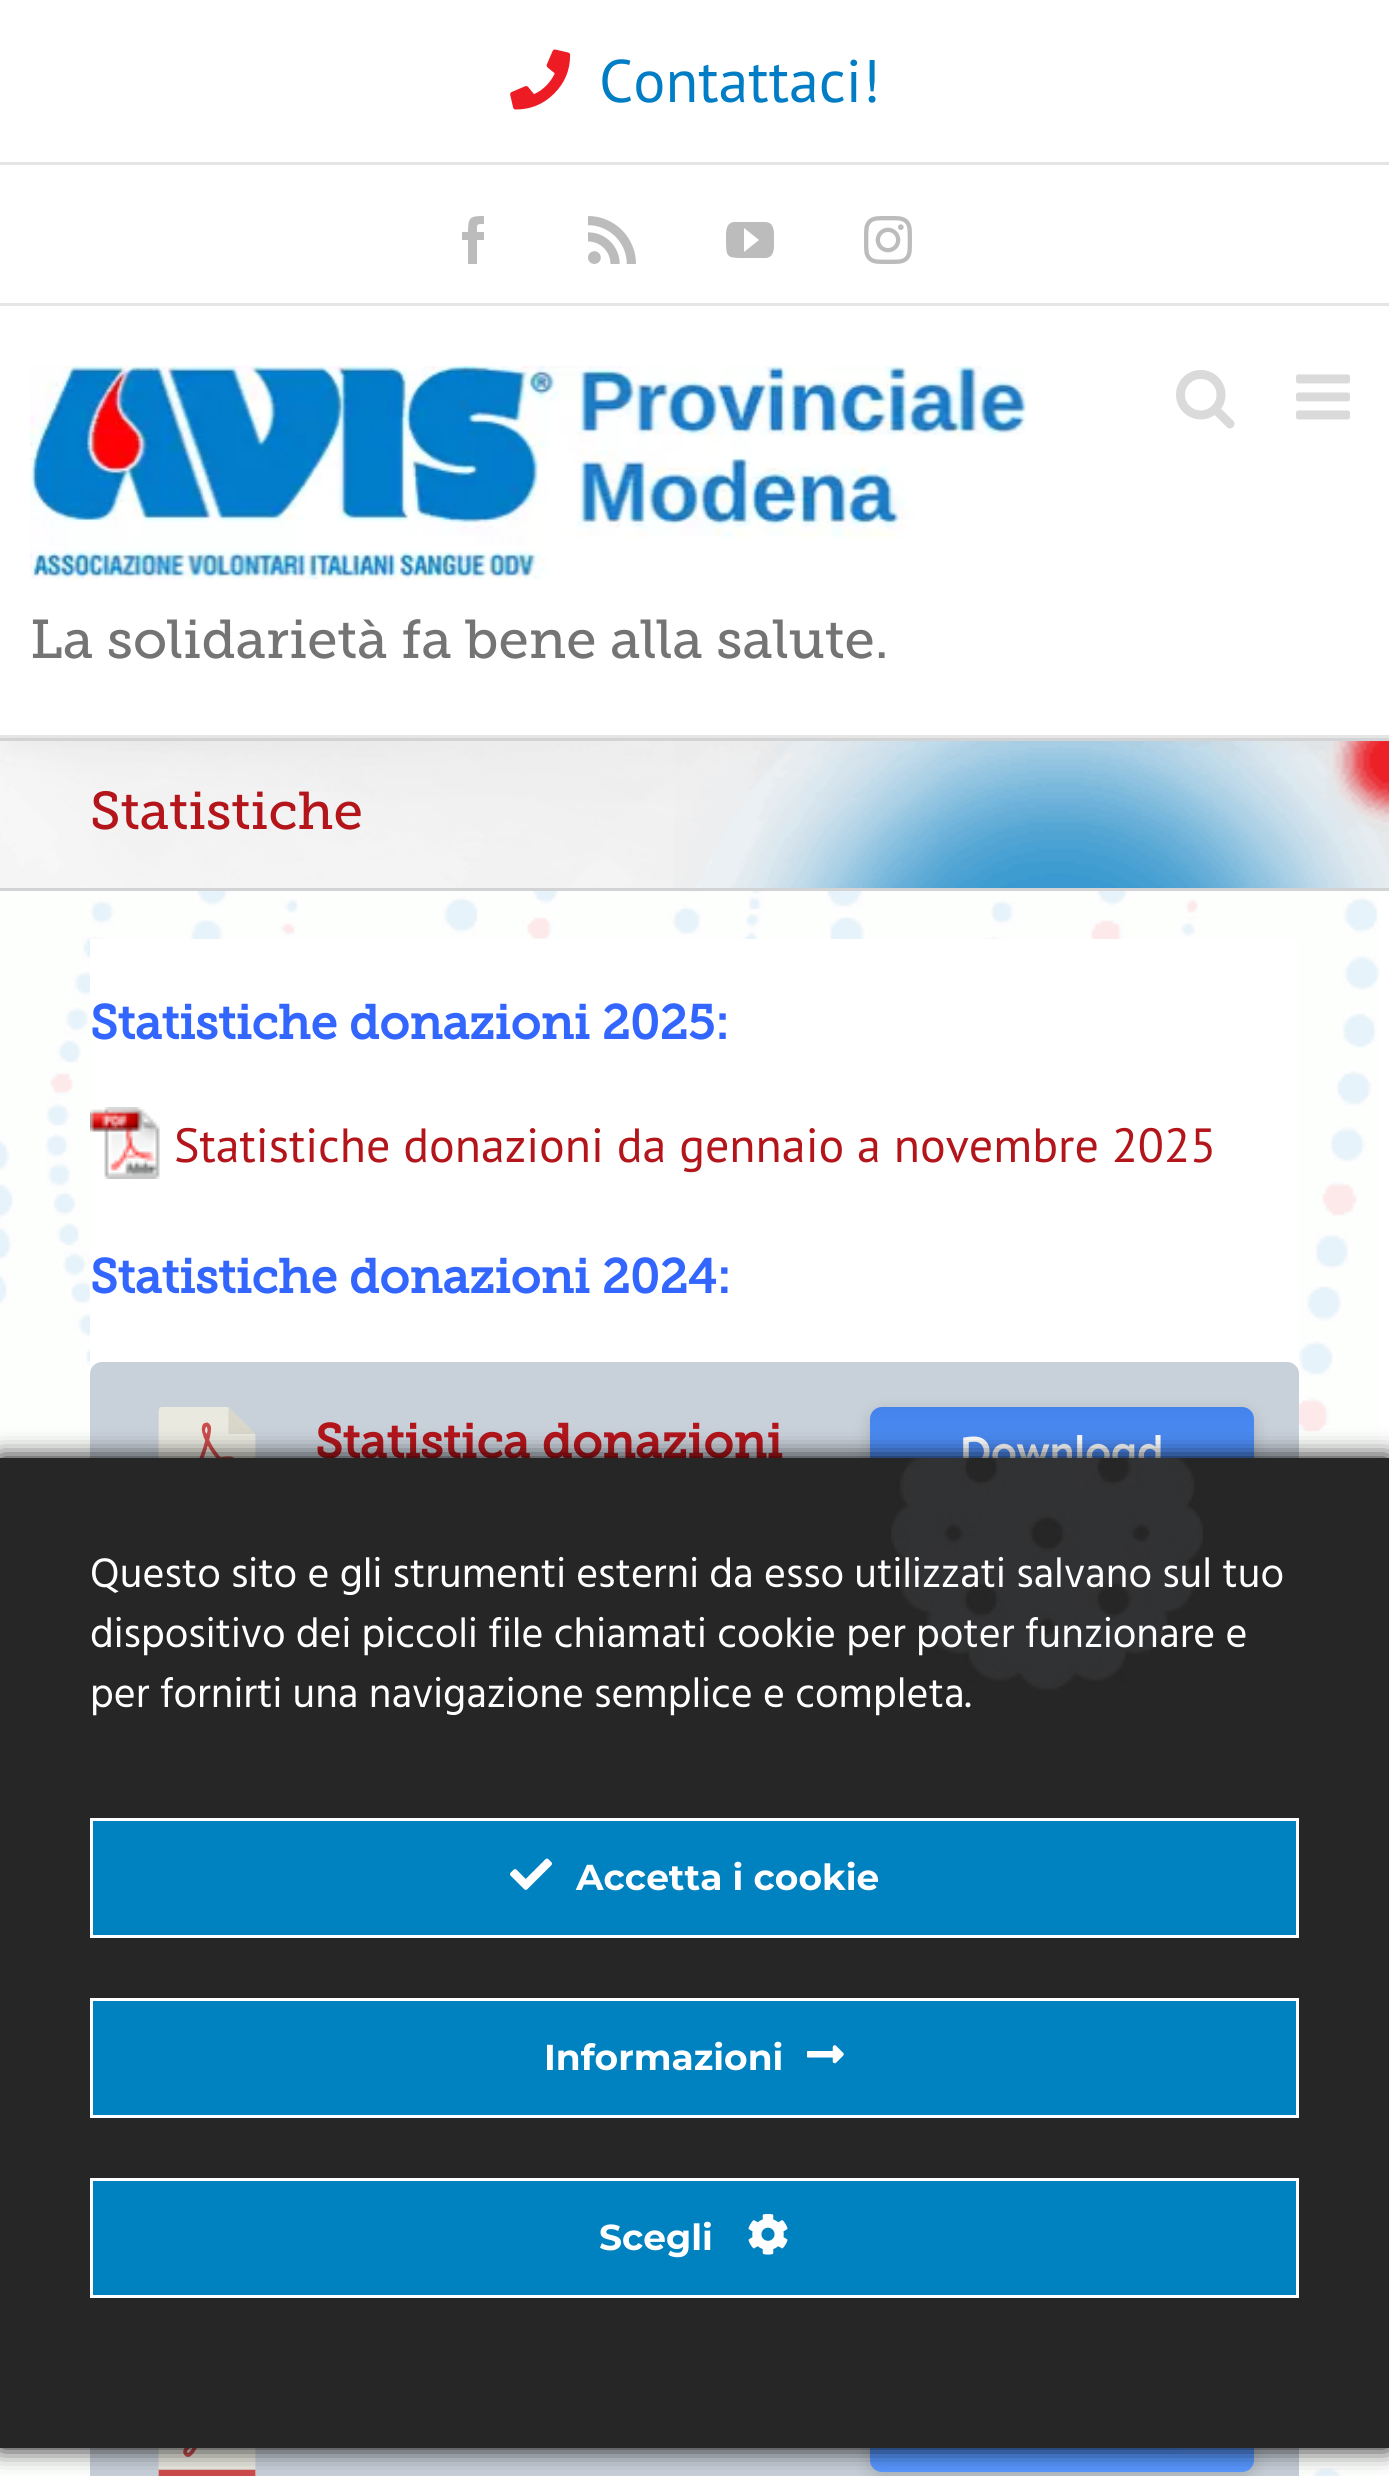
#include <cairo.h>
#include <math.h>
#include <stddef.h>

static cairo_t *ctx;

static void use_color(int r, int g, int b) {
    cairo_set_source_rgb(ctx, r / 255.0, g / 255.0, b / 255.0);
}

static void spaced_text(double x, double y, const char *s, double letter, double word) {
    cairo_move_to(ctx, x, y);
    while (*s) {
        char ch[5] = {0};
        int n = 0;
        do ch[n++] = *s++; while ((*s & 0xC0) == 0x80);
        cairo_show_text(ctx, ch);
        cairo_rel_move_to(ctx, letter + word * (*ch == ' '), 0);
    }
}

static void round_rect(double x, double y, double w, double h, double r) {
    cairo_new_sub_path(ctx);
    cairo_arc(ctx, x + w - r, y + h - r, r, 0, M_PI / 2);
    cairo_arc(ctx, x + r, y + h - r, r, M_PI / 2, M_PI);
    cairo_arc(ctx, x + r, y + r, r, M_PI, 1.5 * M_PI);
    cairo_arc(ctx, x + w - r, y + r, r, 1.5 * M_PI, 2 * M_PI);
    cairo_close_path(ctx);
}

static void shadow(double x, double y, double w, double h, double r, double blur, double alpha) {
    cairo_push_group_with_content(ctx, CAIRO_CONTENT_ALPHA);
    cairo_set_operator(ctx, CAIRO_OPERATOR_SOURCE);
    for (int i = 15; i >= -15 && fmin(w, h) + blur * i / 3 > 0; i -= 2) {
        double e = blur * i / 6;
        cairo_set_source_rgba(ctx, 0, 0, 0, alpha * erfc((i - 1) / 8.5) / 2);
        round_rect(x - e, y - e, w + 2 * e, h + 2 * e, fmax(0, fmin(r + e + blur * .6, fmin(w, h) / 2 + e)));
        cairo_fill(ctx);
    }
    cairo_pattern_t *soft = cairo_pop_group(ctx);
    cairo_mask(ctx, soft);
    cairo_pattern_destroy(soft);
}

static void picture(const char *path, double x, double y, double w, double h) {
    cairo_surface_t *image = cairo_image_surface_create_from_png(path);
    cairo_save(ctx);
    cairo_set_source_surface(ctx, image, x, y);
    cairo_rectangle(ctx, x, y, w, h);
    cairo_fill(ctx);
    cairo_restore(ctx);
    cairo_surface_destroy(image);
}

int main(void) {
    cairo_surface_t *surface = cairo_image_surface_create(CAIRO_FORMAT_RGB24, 1389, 2476);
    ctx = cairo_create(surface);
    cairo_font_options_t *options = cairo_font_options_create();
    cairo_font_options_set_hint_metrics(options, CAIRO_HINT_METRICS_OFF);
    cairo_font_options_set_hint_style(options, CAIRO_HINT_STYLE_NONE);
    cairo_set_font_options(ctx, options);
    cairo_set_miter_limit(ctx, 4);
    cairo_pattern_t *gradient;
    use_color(255, 255, 255);
    cairo_paint(ctx);
    use_color(229, 229, 229);
    cairo_rectangle(ctx, 0, 303, 1389, 3);
    cairo_fill(ctx);
    cairo_rectangle(ctx, 0, 162, 1389, 3);
    cairo_fill(ctx);
    picture("img1.png", 510, 49, 61, 61);
    cairo_select_font_face(ctx, "PT Sans", CAIRO_FONT_SLANT_NORMAL, CAIRO_FONT_WEIGHT_NORMAL);
    cairo_set_font_size(ctx, 60);
    use_color(0, 125, 197);
    cairo_move_to(ctx, 599, 102);
    cairo_show_text(ctx, "Contattaci!");
    use_color(188, 188, 188);
    cairo_new_path(ctx);
    cairo_move_to(ctx, 477, 264);
    cairo_line_to(ctx, 468, 264);
    cairo_line_to(ctx, 468, 240);
    cairo_line_to(ctx, 462, 240);
    cairo_line_to(ctx, 462, 232);
    cairo_line_to(ctx, 468, 232);
    cairo_curve_to(ctx, 468, 217, 470, 216, 484, 216);
    cairo_line_to(ctx, 484, 224);
    cairo_curve_to(ctx, 476, 224, 477, 224, 477, 232);
    cairo_line_to(ctx, 484, 232);
    cairo_line_to(ctx, 484, 240);
    cairo_line_to(ctx, 477, 240);
    cairo_close_path(ctx);
    cairo_fill(ctx);
    picture("img2.png", 588, 216, 48, 48);
    cairo_new_path(ctx);
    cairo_move_to(ctx, 765, 222);
    cairo_line_to(ctx, 734, 222);
    cairo_curve_to(ctx, 725, 223, 726, 233, 726, 240);
    cairo_curve_to(ctx, 726, 258, 727, 258, 745, 258);
    cairo_line_to(ctx, 766, 258);
    cairo_curve_to(ctx, 775, 257, 774, 247, 774, 240);
    cairo_curve_to(ctx, 774, 233, 775, 222, 765, 222);
    cairo_close_path(ctx);
    cairo_move_to(ctx, 744, 252);
    cairo_line_to(ctx, 744, 228);
    cairo_line_to(ctx, 759, 240);
    cairo_close_path(ctx);
    cairo_fill(ctx);
    picture("img3.png", 864, 216, 48, 48);
    use_color(229, 229, 229);
    cairo_rectangle(ctx, 0, 735, 1389, 3);
    cairo_fill(ctx);
    picture("img4.png", 1176, 370, 59, 59);
    picture("img5.png", 1296, 374, 54, 46);
    picture("img6.png", 30, 366, 997, 214);
    cairo_select_font_face(ctx, "Museo Slab", CAIRO_FONT_SLANT_NORMAL, CAIRO_FONT_WEIGHT_NORMAL);
    cairo_set_font_size(ctx, 54.5);
    use_color(116, 116, 116);
    cairo_move_to(ctx, 30, 658);
    cairo_show_text(ctx, "La solidarietà fa bene alla salute.");
    use_color(246, 246, 246);
    cairo_rectangle(ctx, 0, 741, 1389, 147);
    cairo_fill(ctx);
    picture("img7.png", 0, 741, 1389, 147);
    use_color(210, 211, 212);
    cairo_rectangle(ctx, 0, 738, 1389, 3);
    cairo_fill(ctx);
    cairo_rectangle(ctx, 0, 888, 1389, 3);
    cairo_fill(ctx);
    cairo_set_font_size(ctx, 53);
    use_color(179, 21, 27);
    cairo_move_to(ctx, 90, 829);
    cairo_show_text(ctx, "Statistiche");
    picture("img8.png", 0, 891, 1380, 1585);
    use_color(254, 255, 254);
    cairo_rectangle(ctx, 90, 939, 1209, 435);
    cairo_fill(ctx);
    cairo_select_font_face(ctx, "Museo Slab", CAIRO_FONT_SLANT_NORMAL, CAIRO_FONT_WEIGHT_BOLD);
    cairo_set_font_size(ctx, 48);
    use_color(51, 102, 255);
    cairo_move_to(ctx, 90, 1039);
    cairo_show_text(ctx, "Statistiche donazioni 2025:");
    picture("img9.png", 90, 1107, 70, 72);
    cairo_select_font_face(ctx, "PT Sans", CAIRO_FONT_SLANT_NORMAL, CAIRO_FONT_WEIGHT_NORMAL);
    use_color(179, 21, 27);
    cairo_move_to(ctx, 174, 1162);
    cairo_show_text(ctx, "Statistiche donazioni da gennaio a novembre 2025");
    cairo_select_font_face(ctx, "Museo Slab", CAIRO_FONT_SLANT_NORMAL, CAIRO_FONT_WEIGHT_BOLD);
    use_color(51, 102, 255);
    cairo_move_to(ctx, 90, 1293);
    cairo_show_text(ctx, "Statistiche donazioni 2024:");
    use_color(200, 208, 217);
    round_rect(90, 1362, 1209, 387, 12);
    cairo_fill(ctx);
    picture("img10.png", 158, 1407, 98, 51);
    use_color(179, 21, 27);
    cairo_move_to(ctx, 315, 1458);
    cairo_show_text(ctx, "Statistica donazioni");
    use_color(0, 0, 0);
    shadow(870, 1413, 384, 90, 12, 9, 0.15);
    use_color(74, 142, 255);
    round_rect(870, 1407, 384, 90, 12);
    cairo_fill(ctx);
    gradient = cairo_pattern_create_linear(1062, 1407, 1062, 1497);
    cairo_pattern_add_color_stop_rgba(gradient, 0, 0, 0, 0, 0.08);
    cairo_pattern_add_color_stop_rgba(gradient, 1, 1, 1, 1, 0.08);
    cairo_set_source(ctx, gradient);
    cairo_pattern_destroy(gradient);
    round_rect(870, 1407, 384, 90, 12);
    cairo_fill(ctx);
    cairo_select_font_face(ctx, "Sen SemiBold", CAIRO_FONT_SLANT_NORMAL, CAIRO_FONT_WEIGHT_NORMAL);
    cairo_set_font_size(ctx, 44);
    use_color(255, 255, 255);
    spaced_text(959, 1466, "Download", -1, 0);
    use_color(199, 207, 216);
    cairo_rectangle(ctx, 90, 2448, 1209, 28);
    cairo_fill(ctx);
    picture("img11.png", 158, 2448, 98, 28);
    use_color(0, 0, 0);
    shadow(870, 2388, 384, 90, 12, 9, 0.15);
    use_color(74, 142, 255);
    round_rect(870, 2382, 384, 90, 12);
    cairo_fill(ctx);
    gradient = cairo_pattern_create_linear(1062, 2382, 1062, 2472);
    cairo_pattern_add_color_stop_rgba(gradient, 0, 0, 0, 0, 0.08);
    cairo_pattern_add_color_stop_rgba(gradient, 1, 1, 1, 1, 0.08);
    cairo_set_source(ctx, gradient);
    cairo_pattern_destroy(gradient);
    round_rect(870, 2382, 384, 90, 12);
    cairo_fill(ctx);
    use_color(0, 0, 0);
    shadow(0, 1458, 1389, 990, 0, 12, 1);
    use_color(128, 128, 128);
    shadow(1179, 2256, 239, 180, 6, 7.5, 1);
    use_color(38, 38, 38);
    cairo_rectangle(ctx, 0, 1458, 1389, 990);
    cairo_fill(ctx);
    picture("img12.png", 891, 1458, 312, 232);
    cairo_select_font_face(ctx, "Hind", CAIRO_FONT_SLANT_NORMAL, CAIRO_FONT_WEIGHT_NORMAL);
    cairo_set_font_size(ctx, 42);
    use_color(255, 255, 255);
    cairo_move_to(ctx, 90, 1587);
    cairo_show_text(ctx, "Questo sito e gli strumenti esterni da esso utilizzati salvano sul tuo");
    cairo_move_to(ctx, 90, 1647);
    cairo_show_text(ctx, "dispositivo dei piccoli file chiamati cookie per poter funzionare e");
    cairo_move_to(ctx, 90, 1707);
    cairo_show_text(ctx, "per fornirti una navigazione semplice e completa.");
    use_color(0, 129, 192);
    cairo_rectangle(ctx, 91.5, 1819.5, 1206, 117);
    cairo_fill_preserve(ctx);
    use_color(255, 255, 255);
    cairo_set_line_width(ctx, 3);
    cairo_stroke(ctx);
    picture("img13.png", 510, 1858, 42, 32);
    cairo_select_font_face(ctx, "Montserrat", CAIRO_FONT_SLANT_NORMAL, CAIRO_FONT_WEIGHT_BOLD);
    cairo_set_font_size(ctx, 36);
    cairo_move_to(ctx, 576, 1890);
    cairo_show_text(ctx, "Accetta i cookie");
    use_color(0, 129, 192);
    cairo_rectangle(ctx, 91.5, 1999.5, 1206, 117);
    cairo_fill_preserve(ctx);
    use_color(255, 255, 255);
    cairo_stroke(ctx);
    cairo_move_to(ctx, 544, 2070);
    cairo_show_text(ctx, "Informazioni");
    picture("img14.png", 807, 2045, 37, 19);
    use_color(0, 129, 192);
    cairo_rectangle(ctx, 91.5, 2179.5, 1206, 117);
    cairo_fill_preserve(ctx);
    use_color(255, 255, 255);
    cairo_stroke(ctx);
    cairo_move_to(ctx, 599, 2250);
    cairo_show_text(ctx, "Scegli");
    picture("img15.png", 748, 2213, 40, 42);
    cairo_surface_write_to_png(surface, "result.png");
    cairo_font_options_destroy(options);
    cairo_destroy(ctx);
    cairo_surface_destroy(surface);
    return 0;
}
